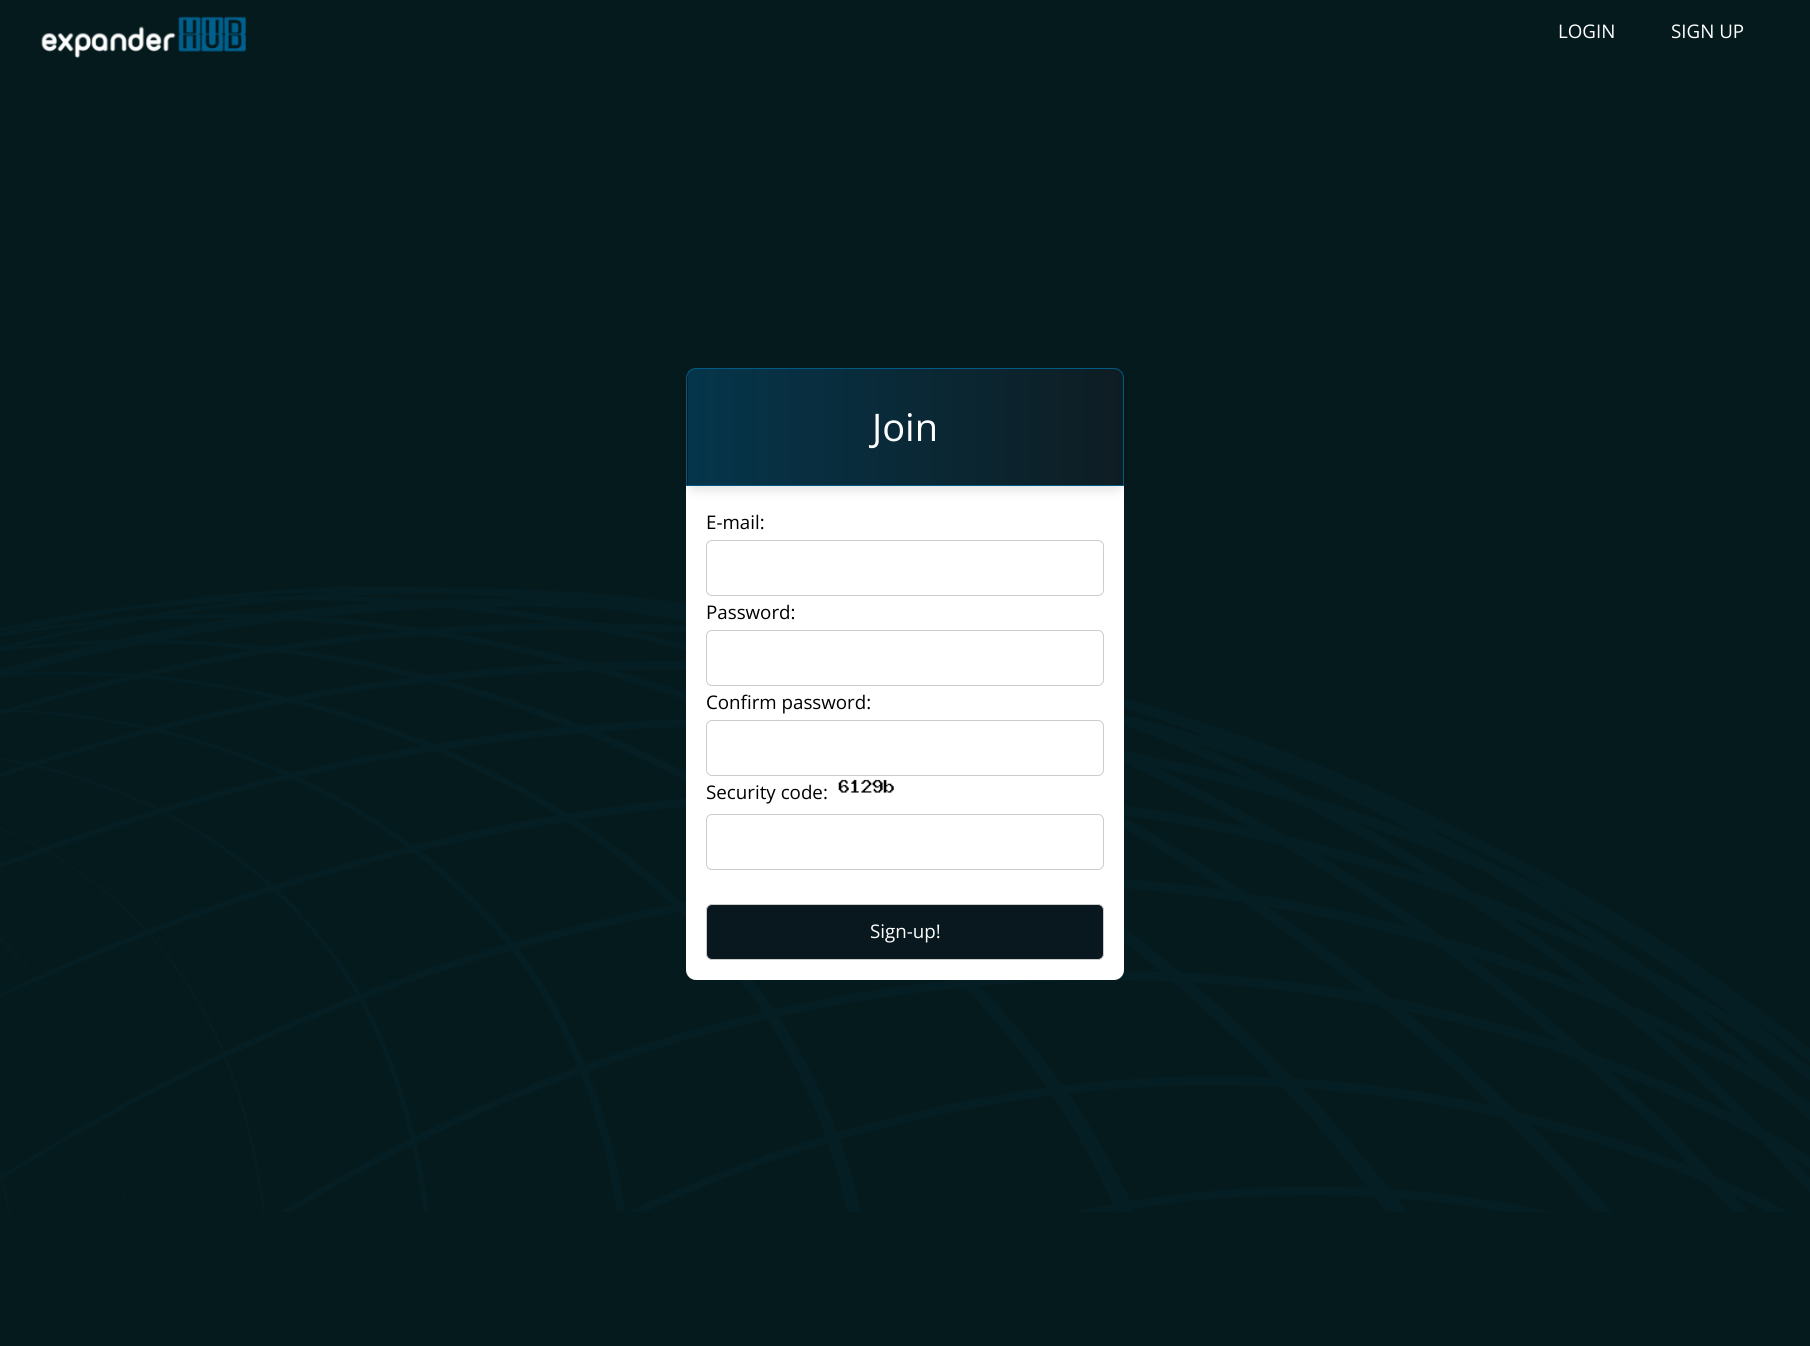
#include <cairo.h>
#include <math.h>
#include <stddef.h>

static cairo_t *ctx;

static void use_color(int r, int g, int b) {
    cairo_set_source_rgb(ctx, r / 255.0, g / 255.0, b / 255.0);
}

static void round_rect(double x, double y, double w, double h, double r) {
    cairo_new_sub_path(ctx);
    cairo_arc(ctx, x + w - r, y + h - r, r, 0, M_PI / 2);
    cairo_arc(ctx, x + r, y + h - r, r, M_PI / 2, M_PI);
    cairo_arc(ctx, x + r, y + r, r, M_PI, 1.5 * M_PI);
    cairo_arc(ctx, x + w - r, y + r, r, 1.5 * M_PI, 2 * M_PI);
    cairo_close_path(ctx);
}

static void shadow(double x, double y, double w, double h, double r, double blur, double alpha) {
    cairo_push_group_with_content(ctx, CAIRO_CONTENT_ALPHA);
    cairo_set_operator(ctx, CAIRO_OPERATOR_SOURCE);
    for (int i = 15; i >= -15 && fmin(w, h) + blur * i / 3 > 0; i -= 2) {
        double e = blur * i / 6;
        cairo_set_source_rgba(ctx, 0, 0, 0, alpha * erfc((i - 1) / 8.5) / 2);
        round_rect(x - e, y - e, w + 2 * e, h + 2 * e, fmax(0, fmin(r + e + blur * .6, fmin(w, h) / 2 + e)));
        cairo_fill(ctx);
    }
    cairo_pattern_t *soft = cairo_pop_group(ctx);
    cairo_mask(ctx, soft);
    cairo_pattern_destroy(soft);
}

static void picture(const char *path, double x, double y, double w, double h) {
    cairo_surface_t *image = cairo_image_surface_create_from_png(path);
    cairo_save(ctx);
    cairo_set_source_surface(ctx, image, x, y);
    cairo_rectangle(ctx, x, y, w, h);
    cairo_fill(ctx);
    cairo_restore(ctx);
    cairo_surface_destroy(image);
}

int main(void) {
    cairo_surface_t *surface = cairo_image_surface_create(CAIRO_FORMAT_RGB24, 1810, 1346);
    ctx = cairo_create(surface);
    cairo_font_options_t *options = cairo_font_options_create();
    cairo_font_options_set_hint_metrics(options, CAIRO_HINT_METRICS_OFF);
    cairo_font_options_set_hint_style(options, CAIRO_HINT_STYLE_NONE);
    cairo_set_font_options(ctx, options);
    cairo_set_miter_limit(ctx, 4);
    cairo_pattern_t *gradient;
    use_color(5, 26, 29);
    cairo_paint(ctx);
    picture("img1.png", 41, 16, 205, 42);
    cairo_select_font_face(ctx, "Open Sans", CAIRO_FONT_SLANT_NORMAL, CAIRO_FONT_WEIGHT_NORMAL);
    cairo_set_font_size(ctx, 18.75);
    use_color(255, 255, 255);
    cairo_move_to(ctx, 1558, 38);
    cairo_show_text(ctx, "LOGIN");
    cairo_move_to(ctx, 1671, 38);
    cairo_show_text(ctx, "SIGN UP");
    picture("img3.png", 0, 587, 1810, 625);
    cairo_new_path(ctx);
    cairo_move_to(ctx, 686, 486);
    cairo_line_to(ctx, 1124, 486);
    cairo_line_to(ctx, 1124, 970);
    cairo_curve_to(ctx, 1124, 975.5, 1119.5, 980, 1114, 980);
    cairo_line_to(ctx, 696, 980);
    cairo_curve_to(ctx, 690.5, 980, 686, 975.5, 686, 970);
    cairo_close_path(ctx);
    cairo_fill(ctx);
    use_color(0, 0, 0);
    shadow(686, 373, 438, 118, 10, 5, 0.1);
    cairo_save(ctx);
    cairo_new_path(ctx);
    cairo_move_to(ctx, 696, 368);
    cairo_line_to(ctx, 1114, 368);
    cairo_curve_to(ctx, 1119.5, 368, 1124, 372.5, 1124, 378);
    cairo_line_to(ctx, 1124, 486);
    cairo_line_to(ctx, 686, 486);
    cairo_line_to(ctx, 686, 378);
    cairo_curve_to(ctx, 686, 372.5, 690.5, 368, 696, 368);
    cairo_close_path(ctx);
    cairo_clip(ctx);
    gradient = cairo_pattern_create_linear(688, 427, 253, 427);
    cairo_pattern_add_color_stop_rgba(gradient, 0, 0.055, 0.114, 0.137, 1);
    cairo_pattern_add_color_stop_rgba(gradient, 1, 0.02, 0.208, 0.294, 1);
    cairo_set_source(ctx, gradient);
    cairo_pattern_destroy(gradient);
    cairo_rectangle(ctx, 686, 368, 2, 118);
    cairo_fill(ctx);
    gradient = cairo_pattern_create_linear(1123, 427, 688, 427);
    cairo_pattern_add_color_stop_rgba(gradient, 0, 0.055, 0.114, 0.137, 1);
    cairo_pattern_add_color_stop_rgba(gradient, 1, 0.02, 0.208, 0.294, 1);
    cairo_set_source(ctx, gradient);
    cairo_pattern_destroy(gradient);
    cairo_rectangle(ctx, 688, 368, 435, 117);
    cairo_fill(ctx);
    cairo_restore(ctx);
    cairo_new_path(ctx);
    cairo_move_to(ctx, 696, 368.5);
    cairo_line_to(ctx, 1114, 368.5);
    cairo_curve_to(ctx, 1119, 368.5, 1123.5, 373, 1123.5, 378);
    cairo_line_to(ctx, 1123.5, 485.5);
    cairo_line_to(ctx, 686.5, 485.5);
    cairo_line_to(ctx, 686.5, 378);
    cairo_curve_to(ctx, 686.5, 373, 691, 368.5, 696, 368.5);
    cairo_close_path(ctx);
    use_color(0, 90, 131);
    cairo_set_line_width(ctx, 1);
    cairo_stroke(ctx);
    cairo_set_font_size(ctx, 38);
    use_color(255, 255, 255);
    cairo_move_to(ctx, 872, 441);
    cairo_show_text(ctx, "Join");
    cairo_set_font_size(ctx, 18.75);
    use_color(0, 0, 0);
    cairo_move_to(ctx, 706, 529);
    cairo_show_text(ctx, "E-mail:");
    round_rect(706.5, 540.5, 397, 55, 5.5);
    use_color(204, 204, 204);
    cairo_stroke(ctx);
    use_color(0, 0, 0);
    cairo_move_to(ctx, 706, 619);
    cairo_show_text(ctx, "Password:");
    round_rect(706.5, 630.5, 397, 55, 5.5);
    use_color(204, 204, 204);
    cairo_stroke(ctx);
    use_color(0, 0, 0);
    cairo_move_to(ctx, 706, 709);
    cairo_show_text(ctx, "Confirm password:");
    round_rect(706.5, 720.5, 397, 55, 5.5);
    use_color(204, 204, 204);
    cairo_stroke(ctx);
    use_color(0, 0, 0);
    cairo_move_to(ctx, 706, 799);
    cairo_show_text(ctx, "Security code:");
    picture("img2.png", 838, 779, 56, 14);
    round_rect(706.5, 814.5, 397, 55, 5.5);
    use_color(204, 204, 204);
    cairo_stroke(ctx);
    use_color(9, 24, 31);
    round_rect(706.5, 904.5, 397, 55, 5.5);
    cairo_fill_preserve(ctx);
    use_color(204, 204, 204);
    cairo_stroke(ctx);
    use_color(255, 255, 255);
    cairo_move_to(ctx, 870, 938);
    cairo_show_text(ctx, "Sign-up!");
    cairo_surface_write_to_png(surface, "result.png");
    cairo_font_options_destroy(options);
    cairo_destroy(ctx);
    cairo_surface_destroy(surface);
    return 0;
}
